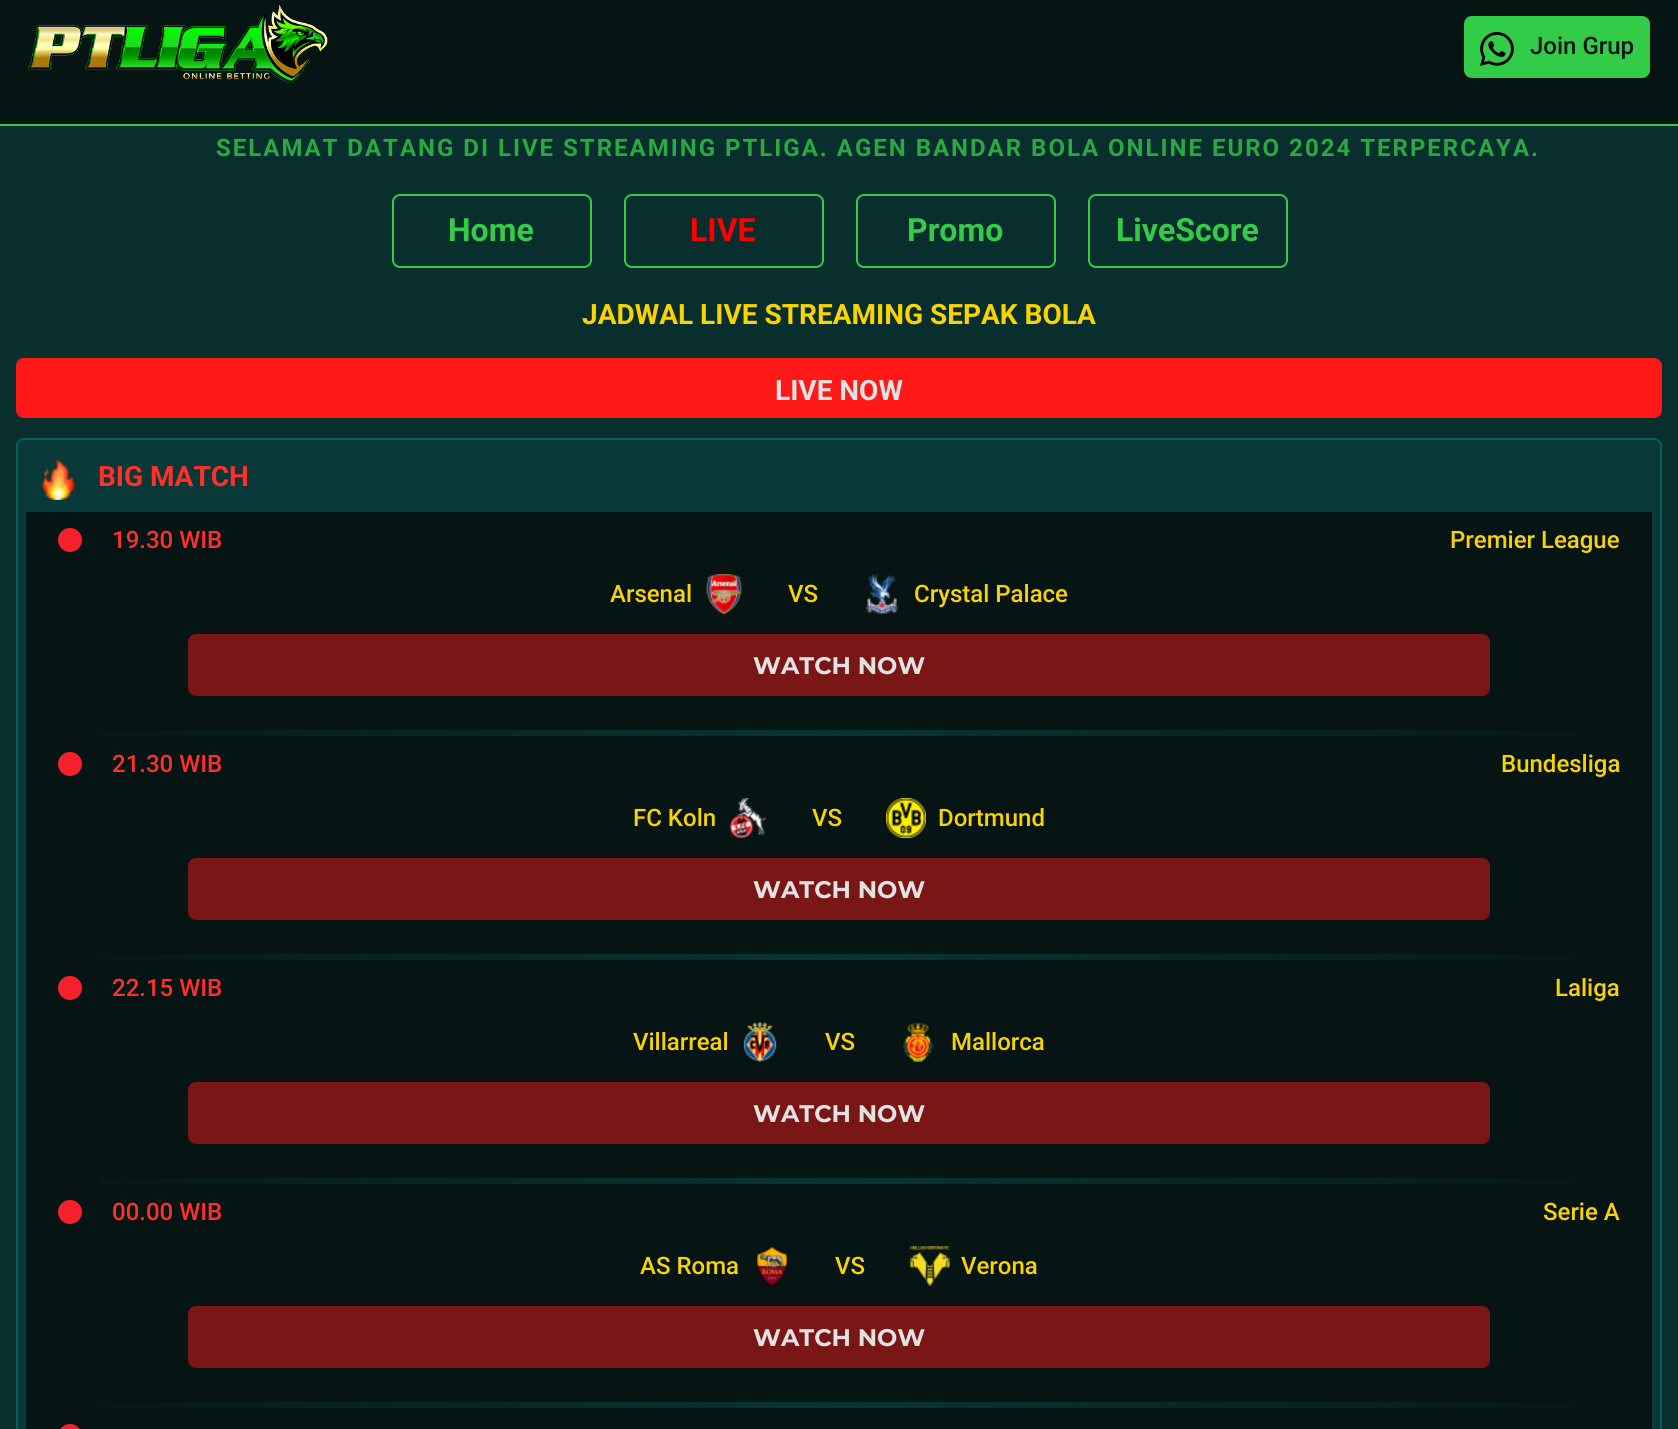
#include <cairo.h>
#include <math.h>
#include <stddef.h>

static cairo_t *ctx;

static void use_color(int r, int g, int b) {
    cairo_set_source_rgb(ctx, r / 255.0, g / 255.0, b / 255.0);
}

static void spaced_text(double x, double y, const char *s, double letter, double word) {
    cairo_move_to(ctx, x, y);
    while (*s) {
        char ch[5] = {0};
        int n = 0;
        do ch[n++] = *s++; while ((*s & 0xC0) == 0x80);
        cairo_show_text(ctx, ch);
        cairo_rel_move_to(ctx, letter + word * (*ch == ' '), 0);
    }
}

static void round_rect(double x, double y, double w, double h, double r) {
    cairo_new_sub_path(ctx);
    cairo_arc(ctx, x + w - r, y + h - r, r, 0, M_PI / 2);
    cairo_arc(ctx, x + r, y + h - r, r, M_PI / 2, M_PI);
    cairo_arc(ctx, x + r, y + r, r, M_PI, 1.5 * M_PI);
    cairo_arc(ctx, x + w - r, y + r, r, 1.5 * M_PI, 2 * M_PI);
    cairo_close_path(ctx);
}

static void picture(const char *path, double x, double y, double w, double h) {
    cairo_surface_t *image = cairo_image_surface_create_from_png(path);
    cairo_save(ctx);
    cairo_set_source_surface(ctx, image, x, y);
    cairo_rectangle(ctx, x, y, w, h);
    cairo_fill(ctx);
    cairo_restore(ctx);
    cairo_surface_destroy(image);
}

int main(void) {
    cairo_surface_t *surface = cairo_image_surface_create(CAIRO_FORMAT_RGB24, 1678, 1429);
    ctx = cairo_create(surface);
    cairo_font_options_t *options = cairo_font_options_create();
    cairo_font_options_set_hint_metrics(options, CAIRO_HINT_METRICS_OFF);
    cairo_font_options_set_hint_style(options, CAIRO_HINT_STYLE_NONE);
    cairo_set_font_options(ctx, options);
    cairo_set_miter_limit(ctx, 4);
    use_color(8, 46, 46);
    cairo_paint(ctx);
    use_color(6, 20, 20);
    cairo_rectangle(ctx, 0, 0, 1678, 124);
    cairo_fill(ctx);
    use_color(51, 204, 72);
    cairo_rectangle(ctx, 0, 124, 1678, 2);
    cairo_fill(ctx);
    picture("img1.png", 28, 3, 300, 80);
    round_rect(1464, 16, 186, 62, 8);
    cairo_fill(ctx);
    picture("img2.png", 1480, 32, 34, 34);
    cairo_select_font_face(ctx, "Roboto Medium", CAIRO_FONT_SLANT_NORMAL, CAIRO_FONT_WEIGHT_NORMAL);
    cairo_set_font_size(ctx, 24);
    use_color(6, 20, 20);
    cairo_move_to(ctx, 1530, 54);
    cairo_show_text(ctx, "Join Grup");
    cairo_select_font_face(ctx, "Roboto", CAIRO_FONT_SLANT_NORMAL, CAIRO_FONT_WEIGHT_BOLD);
    use_color(42, 169, 66);
    spaced_text(216, 156, "SELAMAT DATANG DI LIVE STREAMING PTLIGA. AGEN BANDAR BOLA ONLINE EURO 2024 TERPERCAYA.", 2, 0);
    round_rect(393, 195, 198, 72, 7);
    use_color(51, 204, 72);
    cairo_stroke(ctx);
    cairo_set_font_size(ctx, 32);
    cairo_move_to(ctx, 448, 241);
    cairo_show_text(ctx, "Home");
    round_rect(625, 195, 198, 72, 7);
    cairo_stroke(ctx);
    use_color(255, 0, 0);
    cairo_move_to(ctx, 690, 241);
    cairo_show_text(ctx, "LIVE");
    round_rect(857, 195, 198, 72, 7);
    use_color(51, 204, 72);
    cairo_stroke(ctx);
    cairo_move_to(ctx, 907, 241);
    cairo_show_text(ctx, "Promo");
    round_rect(1089, 195, 198, 72, 7);
    cairo_stroke(ctx);
    cairo_move_to(ctx, 1116, 241);
    cairo_show_text(ctx, "LiveScore");
    cairo_set_font_size(ctx, 28);
    use_color(250, 212, 0);
    cairo_move_to(ctx, 582, 324);
    cairo_show_text(ctx, "JADWAL LIVE STREAMING SEPAK BOLA");
    use_color(255, 24, 24);
    round_rect(16, 358, 1646, 60, 8);
    cairo_fill(ctx);
    use_color(226, 226, 226);
    cairo_move_to(ctx, 775, 400);
    cairo_show_text(ctx, "LIVE NOW");
    use_color(8, 56, 56);
    round_rect(17, 439, 1644, 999, 7);
    cairo_fill_preserve(ctx);
    use_color(6, 94, 94);
    cairo_stroke(ctx);
    picture("img3.png", 41, 460, 34, 40);
    use_color(255, 48, 41);
    cairo_move_to(ctx, 98, 486);
    cairo_show_text(ctx, "BIG MATCH");
    use_color(6, 20, 20);
    cairo_rectangle(ctx, 26, 512, 1626, 917);
    cairo_fill(ctx);
    picture("img4.png", 99, 730, 1481, 6);
    use_color(244, 33, 45);
    cairo_arc(ctx, 70, 540, 12, 0, 2 * M_PI);
    cairo_fill(ctx);
    cairo_select_font_face(ctx, "Roboto Medium", CAIRO_FONT_SLANT_NORMAL, CAIRO_FONT_WEIGHT_NORMAL);
    cairo_set_font_size(ctx, 24);
    use_color(255, 48, 41);
    cairo_move_to(ctx, 112, 548);
    cairo_show_text(ctx, "19.30 WIB");
    use_color(250, 212, 0);
    cairo_move_to(ctx, 1450, 548);
    cairo_show_text(ctx, "Premier League");
    cairo_move_to(ctx, 610, 602);
    cairo_show_text(ctx, "Arsenal");
    picture("img5.png", 706, 574, 36, 40);
    cairo_move_to(ctx, 788, 602);
    cairo_show_text(ctx, "VS");
    picture("img6.png", 865, 574, 34, 40);
    cairo_move_to(ctx, 914, 602);
    cairo_show_text(ctx, "Crystal Palace");
    use_color(123, 22, 22);
    round_rect(188, 634, 1302, 62, 8);
    cairo_fill(ctx);
    cairo_select_font_face(ctx, "Montserrat", CAIRO_FONT_SLANT_NORMAL, CAIRO_FONT_WEIGHT_BOLD);
    use_color(226, 226, 226);
    cairo_move_to(ctx, 753, 674);
    cairo_show_text(ctx, "WATCH NOW");
    picture("img7.png", 99, 954, 1479, 6);
    use_color(244, 33, 45);
    cairo_arc(ctx, 70, 764, 12, 0, 2 * M_PI);
    cairo_fill(ctx);
    cairo_select_font_face(ctx, "Roboto Medium", CAIRO_FONT_SLANT_NORMAL, CAIRO_FONT_WEIGHT_NORMAL);
    use_color(255, 48, 41);
    cairo_move_to(ctx, 112, 772);
    cairo_show_text(ctx, "21.30 WIB");
    use_color(250, 212, 0);
    cairo_move_to(ctx, 1501, 772);
    cairo_show_text(ctx, "Bundesliga");
    cairo_move_to(ctx, 633, 826);
    cairo_show_text(ctx, "FC Koln");
    picture("img8.png", 729, 798, 38, 40);
    cairo_move_to(ctx, 812, 826);
    cairo_show_text(ctx, "VS");
    picture("img9.png", 886, 798, 40, 40);
    cairo_move_to(ctx, 938, 826);
    cairo_show_text(ctx, "Dortmund");
    use_color(123, 22, 22);
    round_rect(188, 858, 1302, 62, 8);
    cairo_fill(ctx);
    cairo_select_font_face(ctx, "Montserrat", CAIRO_FONT_SLANT_NORMAL, CAIRO_FONT_WEIGHT_BOLD);
    use_color(226, 226, 226);
    cairo_move_to(ctx, 753, 898);
    cairo_show_text(ctx, "WATCH NOW");
    picture("img10.png", 99, 1178, 1481, 6);
    use_color(244, 33, 45);
    cairo_arc(ctx, 70, 988, 12, 0, 2 * M_PI);
    cairo_fill(ctx);
    cairo_select_font_face(ctx, "Roboto Medium", CAIRO_FONT_SLANT_NORMAL, CAIRO_FONT_WEIGHT_NORMAL);
    use_color(255, 48, 41);
    cairo_move_to(ctx, 112, 996);
    cairo_show_text(ctx, "22.15 WIB");
    use_color(250, 212, 0);
    cairo_move_to(ctx, 1555, 996);
    cairo_show_text(ctx, "Laliga");
    cairo_move_to(ctx, 633, 1050);
    cairo_show_text(ctx, "Villarreal");
    picture("img11.png", 743, 1022, 34, 40);
    cairo_move_to(ctx, 825, 1050);
    cairo_show_text(ctx, "VS");
    picture("img12.png", 902, 1022, 31, 40);
    cairo_move_to(ctx, 951, 1050);
    cairo_show_text(ctx, "Mallorca");
    use_color(123, 22, 22);
    round_rect(188, 1082, 1302, 62, 8);
    cairo_fill(ctx);
    cairo_select_font_face(ctx, "Montserrat", CAIRO_FONT_SLANT_NORMAL, CAIRO_FONT_WEIGHT_BOLD);
    use_color(226, 226, 226);
    cairo_move_to(ctx, 753, 1122);
    cairo_show_text(ctx, "WATCH NOW");
    picture("img13.png", 99, 1402, 1481, 6);
    use_color(244, 33, 45);
    cairo_arc(ctx, 70, 1212, 12, 0, 2 * M_PI);
    cairo_fill(ctx);
    cairo_select_font_face(ctx, "Roboto Medium", CAIRO_FONT_SLANT_NORMAL, CAIRO_FONT_WEIGHT_NORMAL);
    use_color(255, 48, 41);
    cairo_move_to(ctx, 112, 1220);
    cairo_show_text(ctx, "00.00 WIB");
    use_color(250, 212, 0);
    cairo_move_to(ctx, 1543, 1220);
    cairo_show_text(ctx, "Serie A");
    cairo_move_to(ctx, 640, 1274);
    cairo_show_text(ctx, "AS Roma");
    picture("img14.png", 756, 1246, 32, 40);
    cairo_move_to(ctx, 835, 1274);
    cairo_show_text(ctx, "VS");
    picture("img15.png", 910, 1246, 40, 40);
    cairo_move_to(ctx, 961, 1274);
    cairo_show_text(ctx, "Verona");
    use_color(123, 22, 22);
    round_rect(188, 1306, 1302, 62, 8);
    cairo_fill(ctx);
    cairo_select_font_face(ctx, "Montserrat", CAIRO_FONT_SLANT_NORMAL, CAIRO_FONT_WEIGHT_BOLD);
    use_color(226, 226, 226);
    cairo_move_to(ctx, 753, 1346);
    cairo_show_text(ctx, "WATCH NOW");
    use_color(244, 33, 45);
    round_rect(58, 1424, 24, 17, 12);
    cairo_fill(ctx);
    cairo_surface_write_to_png(surface, "result.png");
    cairo_font_options_destroy(options);
    cairo_destroy(ctx);
    cairo_surface_destroy(surface);
    return 0;
}
